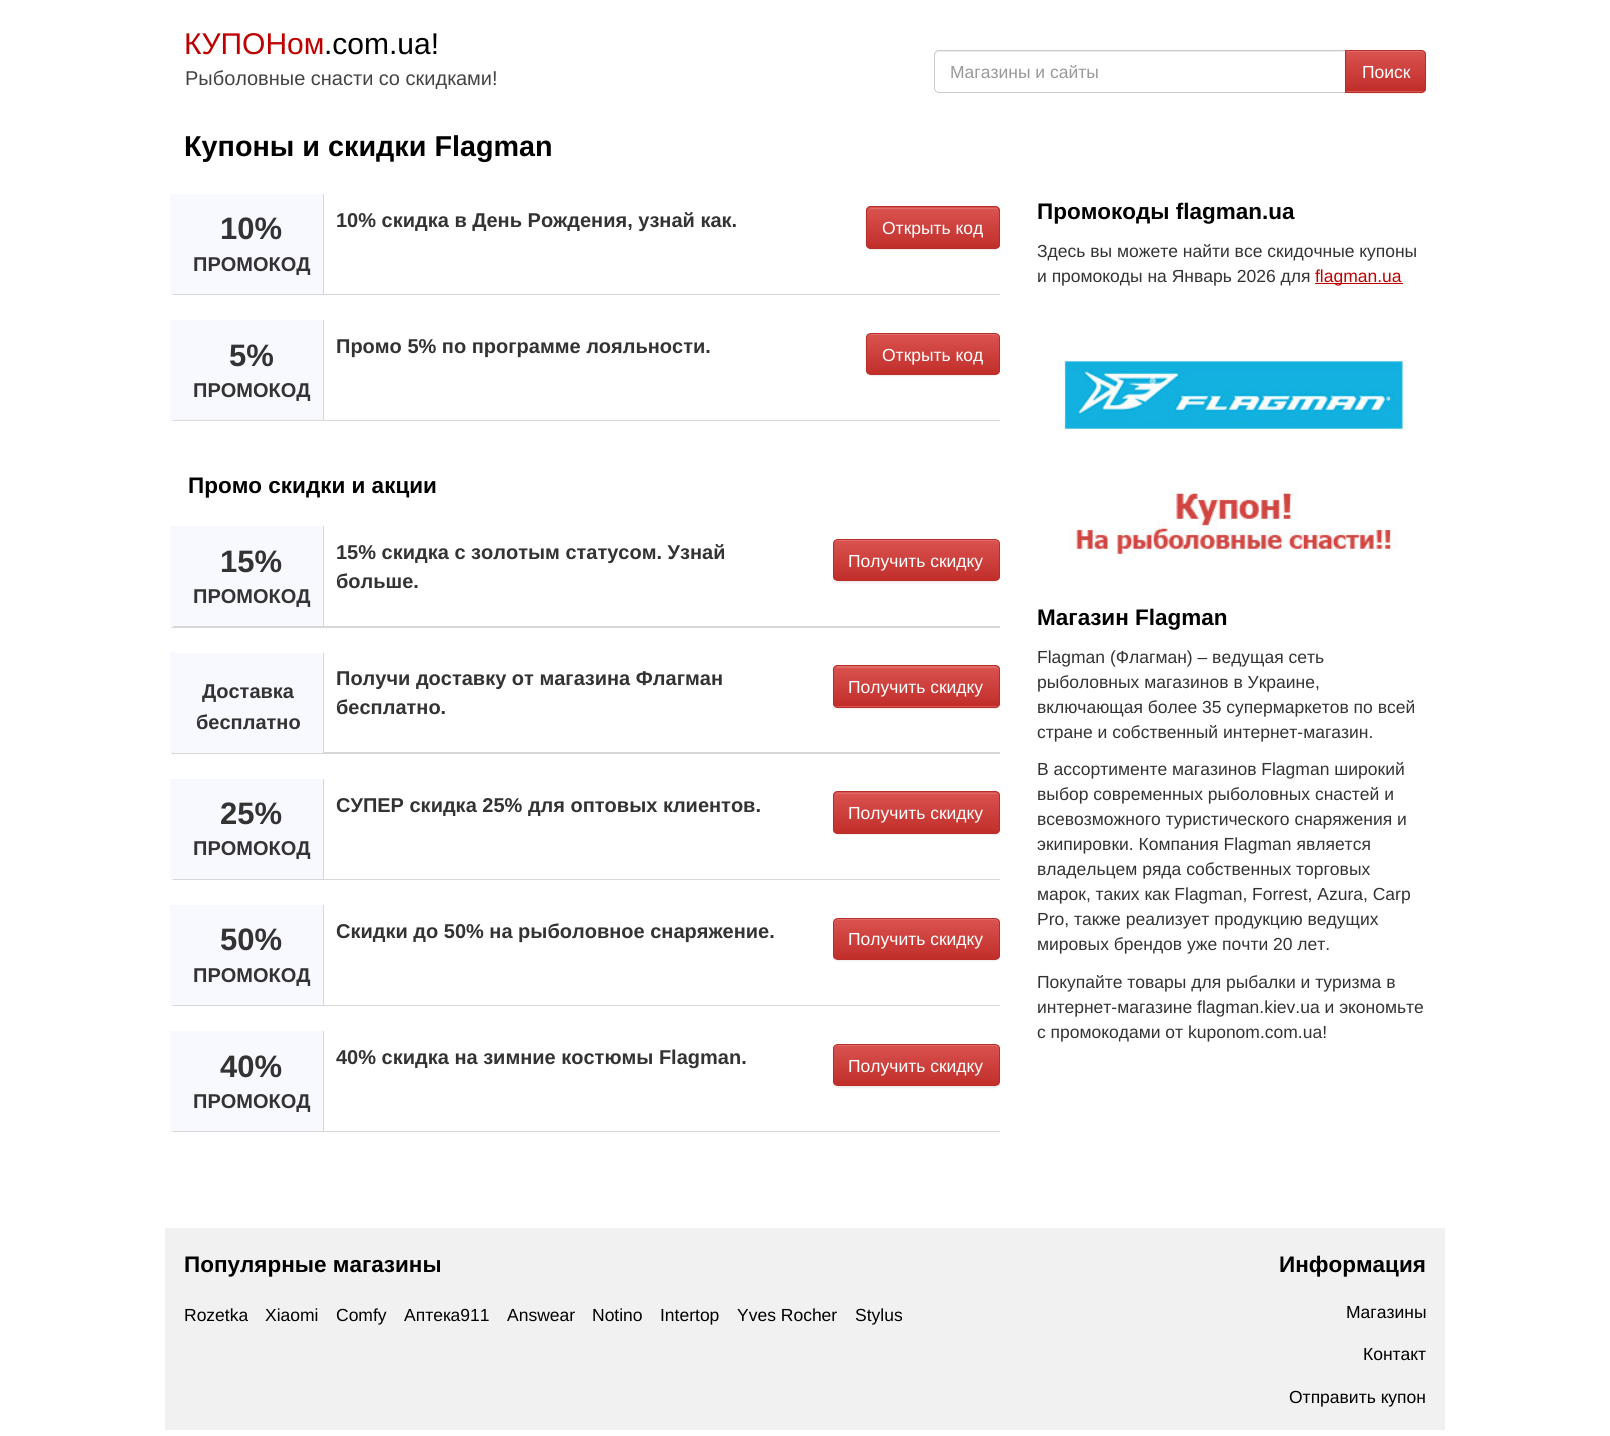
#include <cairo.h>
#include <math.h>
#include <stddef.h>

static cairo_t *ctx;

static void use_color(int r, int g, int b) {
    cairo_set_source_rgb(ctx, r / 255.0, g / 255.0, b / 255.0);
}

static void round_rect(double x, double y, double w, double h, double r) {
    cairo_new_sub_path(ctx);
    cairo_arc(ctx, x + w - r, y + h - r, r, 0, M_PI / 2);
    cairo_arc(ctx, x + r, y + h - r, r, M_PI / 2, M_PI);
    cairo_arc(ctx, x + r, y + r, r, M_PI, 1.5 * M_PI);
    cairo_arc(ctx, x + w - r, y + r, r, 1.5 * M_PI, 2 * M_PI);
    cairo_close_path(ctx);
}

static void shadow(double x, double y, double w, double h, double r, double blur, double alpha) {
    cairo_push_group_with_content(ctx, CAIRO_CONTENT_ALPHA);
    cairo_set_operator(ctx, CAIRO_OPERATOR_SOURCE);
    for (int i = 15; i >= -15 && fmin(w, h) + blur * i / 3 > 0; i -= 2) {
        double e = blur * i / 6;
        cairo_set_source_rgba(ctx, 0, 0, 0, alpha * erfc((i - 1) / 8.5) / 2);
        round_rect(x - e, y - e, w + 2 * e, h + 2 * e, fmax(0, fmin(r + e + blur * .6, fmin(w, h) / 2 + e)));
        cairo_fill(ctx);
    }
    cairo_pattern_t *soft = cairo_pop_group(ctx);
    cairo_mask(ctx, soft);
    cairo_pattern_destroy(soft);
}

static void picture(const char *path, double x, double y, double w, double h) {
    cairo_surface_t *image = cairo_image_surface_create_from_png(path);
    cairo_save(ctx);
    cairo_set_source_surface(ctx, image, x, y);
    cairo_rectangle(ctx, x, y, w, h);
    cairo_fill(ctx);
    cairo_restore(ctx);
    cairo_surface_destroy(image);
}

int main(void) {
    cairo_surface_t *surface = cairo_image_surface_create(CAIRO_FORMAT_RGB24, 1610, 1436);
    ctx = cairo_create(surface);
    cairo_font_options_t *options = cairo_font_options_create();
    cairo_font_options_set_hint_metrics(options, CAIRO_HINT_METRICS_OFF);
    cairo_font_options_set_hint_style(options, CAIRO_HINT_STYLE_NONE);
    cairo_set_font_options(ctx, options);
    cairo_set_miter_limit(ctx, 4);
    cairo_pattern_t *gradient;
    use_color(255, 255, 255);
    cairo_paint(ctx);
    cairo_select_font_face(ctx, "Liberation Sans", CAIRO_FONT_SLANT_NORMAL, CAIRO_FONT_WEIGHT_NORMAL);
    cairo_set_font_size(ctx, 30);
    use_color(191, 0, 0);
    cairo_move_to(ctx, 184, 54);
    cairo_show_text(ctx, "КУПОНом");
    use_color(0, 0, 0);
    cairo_move_to(ctx, 324, 54);
    cairo_show_text(ctx, ".com.ua!");
    cairo_set_font_size(ctx, 20);
    use_color(68, 68, 68);
    cairo_move_to(ctx, 185, 85);
    cairo_show_text(ctx, "Рыболовные снасти со скидками!");
    use_color(236, 236, 236);
    cairo_new_path(ctx);
    cairo_move_to(ctx, 939, 52);
    cairo_line_to(ctx, 1345, 52);
    cairo_line_to(ctx, 1345, 51);
    cairo_line_to(ctx, 939, 51);
    cairo_curve_to(ctx, 937, 51, 935, 53, 935, 55);
    cairo_line_to(ctx, 935, 56);
    cairo_curve_to(ctx, 935, 54, 937, 52, 939, 52);
    cairo_close_path(ctx);
    cairo_fill(ctx);
    cairo_new_path(ctx);
    cairo_move_to(ctx, 939, 50.5);
    cairo_line_to(ctx, 1345.5, 50.5);
    cairo_line_to(ctx, 1345.5, 92.5);
    cairo_line_to(ctx, 939, 92.5);
    cairo_curve_to(ctx, 936.5, 92.5, 934.5, 90.5, 934.5, 88);
    cairo_line_to(ctx, 934.5, 55);
    cairo_curve_to(ctx, 934.5, 52.5, 936.5, 50.5, 939, 50.5);
    cairo_close_path(ctx);
    use_color(204, 204, 204);
    cairo_set_line_width(ctx, 1);
    cairo_stroke(ctx);
    cairo_set_font_size(ctx, 17.5);
    use_color(153, 153, 153);
    cairo_move_to(ctx, 950, 78);
    cairo_show_text(ctx, "Магазины и сайты");
    use_color(0, 0, 0);
    shadow(1345, 51, 81, 43, 5, 0.5, 0.07);
    use_color(217, 83, 79);
    cairo_new_path(ctx);
    cairo_move_to(ctx, 1345, 50);
    cairo_line_to(ctx, 1421, 50);
    cairo_curve_to(ctx, 1424, 50, 1426, 52, 1426, 55);
    cairo_line_to(ctx, 1426, 88);
    cairo_curve_to(ctx, 1426, 91, 1424, 93, 1421, 93);
    cairo_line_to(ctx, 1345, 93);
    cairo_close_path(ctx);
    cairo_fill(ctx);
    cairo_save(ctx);
    cairo_new_path(ctx);
    cairo_move_to(ctx, 1345, 50);
    cairo_line_to(ctx, 1421, 50);
    cairo_curve_to(ctx, 1424, 50, 1426, 52, 1426, 55);
    cairo_line_to(ctx, 1426, 88);
    cairo_curve_to(ctx, 1426, 91, 1424, 93, 1421, 93);
    cairo_line_to(ctx, 1345, 93);
    cairo_close_path(ctx);
    cairo_clip(ctx);
    gradient = cairo_pattern_create_linear(1386, 51, 1386, 91);
    cairo_pattern_add_color_stop_rgba(gradient, 0, 0.851, 0.325, 0.31, 1);
    cairo_pattern_add_color_stop_rgba(gradient, 1, 0.757, 0.18, 0.165, 1);
    cairo_set_source(ctx, gradient);
    cairo_pattern_destroy(gradient);
    cairo_rectangle(ctx, 1346, 51, 80, 40);
    cairo_fill(ctx);
    cairo_restore(ctx);
    use_color(223, 109, 105);
    cairo_new_path(ctx);
    cairo_move_to(ctx, 1346, 52);
    cairo_line_to(ctx, 1421, 52);
    cairo_curve_to(ctx, 1423, 52, 1425, 54, 1425, 56);
    cairo_line_to(ctx, 1425, 55);
    cairo_curve_to(ctx, 1425, 53, 1423, 51, 1421, 51);
    cairo_line_to(ctx, 1346, 51);
    cairo_close_path(ctx);
    cairo_fill(ctx);
    cairo_new_path(ctx);
    cairo_move_to(ctx, 1345.5, 50.5);
    cairo_line_to(ctx, 1421, 50.5);
    cairo_curve_to(ctx, 1423.5, 50.5, 1425.5, 52.5, 1425.5, 55);
    cairo_line_to(ctx, 1425.5, 88);
    cairo_curve_to(ctx, 1425.5, 90.5, 1423.5, 92.5, 1421, 92.5);
    cairo_line_to(ctx, 1345.5, 92.5);
    cairo_close_path(ctx);
    use_color(185, 44, 40);
    cairo_stroke(ctx);
    use_color(255, 255, 255);
    cairo_move_to(ctx, 1362, 78);
    cairo_show_text(ctx, "Поиск");
    cairo_select_font_face(ctx, "Liberation Sans", CAIRO_FONT_SLANT_NORMAL, CAIRO_FONT_WEIGHT_BOLD);
    cairo_set_font_size(ctx, 28.75);
    use_color(0, 0, 0);
    cairo_move_to(ctx, 184, 156);
    cairo_show_text(ctx, "Купоны и скидки Flagman");
    use_color(215, 215, 215);
    cairo_new_path(ctx);
    cairo_move_to(ctx, 1000, 295);
    cairo_line_to(ctx, 170, 295);
    cairo_line_to(ctx, 174, 294);
    cairo_line_to(ctx, 1000, 294);
    cairo_close_path(ctx);
    cairo_fill(ctx);
    use_color(248, 248, 255);
    cairo_new_path(ctx);
    cairo_move_to(ctx, 170, 295);
    cairo_line_to(ctx, 170, 194);
    cairo_line_to(ctx, 174, 194);
    cairo_line_to(ctx, 174, 294);
    cairo_close_path(ctx);
    cairo_fill(ctx);
    cairo_rectangle(ctx, 174, 194, 149, 100);
    cairo_fill(ctx);
    use_color(215, 215, 215);
    cairo_rectangle(ctx, 323, 194, 1, 100);
    cairo_fill(ctx);
    cairo_set_font_size(ctx, 31);
    use_color(51, 51, 51);
    cairo_move_to(ctx, 220, 239);
    cairo_show_text(ctx, "10%");
    cairo_set_font_size(ctx, 20);
    cairo_move_to(ctx, 193, 271);
    cairo_show_text(ctx, "ПРОМОКОД");
    cairo_move_to(ctx, 336, 227);
    cairo_show_text(ctx, "10% скидка в День Рождения, узнай как.");
    use_color(0, 0, 0);
    shadow(866, 208, 134, 42, 5, 0.5, 0.07);
    use_color(217, 83, 79);
    round_rect(866, 206, 134, 43, 5);
    cairo_fill(ctx);
    cairo_save(ctx);
    round_rect(866, 206, 134, 43, 5);
    cairo_clip(ctx);
    gradient = cairo_pattern_create_linear(933, 208, 933, 248);
    cairo_pattern_add_color_stop_rgba(gradient, 0, 0.851, 0.325, 0.31, 1);
    cairo_pattern_add_color_stop_rgba(gradient, 1, 0.757, 0.18, 0.165, 1);
    cairo_set_source(ctx, gradient);
    cairo_pattern_destroy(gradient);
    cairo_rectangle(ctx, 866, 208, 134, 40);
    cairo_fill(ctx);
    cairo_restore(ctx);
    use_color(223, 109, 105);
    cairo_new_path(ctx);
    cairo_move_to(ctx, 871, 209);
    cairo_line_to(ctx, 995, 209);
    cairo_curve_to(ctx, 997, 209, 999, 210, 999, 212);
    cairo_curve_to(ctx, 999, 210, 997, 208, 995, 208);
    cairo_line_to(ctx, 872, 208);
    cairo_curve_to(ctx, 871, 208, 869, 209, 869, 210);
    cairo_close_path(ctx);
    cairo_fill(ctx);
    round_rect(866.5, 206.5, 133, 42, 4.5);
    use_color(185, 44, 40);
    cairo_stroke(ctx);
    cairo_select_font_face(ctx, "Liberation Sans", CAIRO_FONT_SLANT_NORMAL, CAIRO_FONT_WEIGHT_NORMAL);
    cairo_set_font_size(ctx, 17.5);
    use_color(255, 255, 255);
    cairo_move_to(ctx, 882, 234);
    cairo_show_text(ctx, "Открыть код");
    use_color(215, 215, 215);
    cairo_new_path(ctx);
    cairo_move_to(ctx, 1000, 421);
    cairo_line_to(ctx, 170, 421);
    cairo_line_to(ctx, 174, 420);
    cairo_line_to(ctx, 1000, 420);
    cairo_close_path(ctx);
    cairo_fill(ctx);
    use_color(248, 248, 255);
    cairo_new_path(ctx);
    cairo_move_to(ctx, 170, 421);
    cairo_line_to(ctx, 170, 320);
    cairo_line_to(ctx, 174, 320);
    cairo_line_to(ctx, 174, 420);
    cairo_close_path(ctx);
    cairo_fill(ctx);
    cairo_rectangle(ctx, 174, 320, 149, 100);
    cairo_fill(ctx);
    use_color(215, 215, 215);
    cairo_rectangle(ctx, 323, 320, 1, 100);
    cairo_fill(ctx);
    cairo_select_font_face(ctx, "Liberation Sans", CAIRO_FONT_SLANT_NORMAL, CAIRO_FONT_WEIGHT_BOLD);
    cairo_set_font_size(ctx, 31);
    use_color(51, 51, 51);
    cairo_move_to(ctx, 229, 366);
    cairo_show_text(ctx, "5%");
    cairo_set_font_size(ctx, 20);
    cairo_move_to(ctx, 193, 397);
    cairo_show_text(ctx, "ПРОМОКОД");
    cairo_move_to(ctx, 336, 353);
    cairo_show_text(ctx, "Промо 5% по программе лояльности.");
    use_color(0, 0, 0);
    shadow(866, 334, 134, 42, 5, 0.5, 0.07);
    cairo_save(ctx);
    round_rect(866, 333, 134, 42, 5);
    cairo_clip(ctx);
    gradient = cairo_pattern_create_linear(933, 334, 933, 374);
    cairo_pattern_add_color_stop_rgba(gradient, 0, 0.851, 0.325, 0.31, 1);
    cairo_pattern_add_color_stop_rgba(gradient, 1, 0.757, 0.18, 0.165, 1);
    cairo_set_source(ctx, gradient);
    cairo_pattern_destroy(gradient);
    cairo_rectangle(ctx, 866, 334, 134, 40);
    cairo_fill(ctx);
    cairo_restore(ctx);
    use_color(223, 109, 105);
    cairo_new_path(ctx);
    cairo_move_to(ctx, 871, 335);
    cairo_line_to(ctx, 995, 335);
    cairo_curve_to(ctx, 997, 335, 999, 337, 999, 339);
    cairo_line_to(ctx, 999, 338);
    cairo_curve_to(ctx, 999, 336, 997, 334, 995, 334);
    cairo_line_to(ctx, 872, 334);
    cairo_curve_to(ctx, 870, 334, 868, 336, 868, 338);
    cairo_line_to(ctx, 868, 339);
    cairo_curve_to(ctx, 868, 337, 869, 335, 871, 335);
    cairo_close_path(ctx);
    cairo_fill(ctx);
    round_rect(866.5, 333.5, 133, 41, 4.5);
    use_color(185, 44, 40);
    cairo_stroke(ctx);
    cairo_select_font_face(ctx, "Liberation Sans", CAIRO_FONT_SLANT_NORMAL, CAIRO_FONT_WEIGHT_NORMAL);
    cairo_set_font_size(ctx, 17.5);
    use_color(255, 255, 255);
    cairo_move_to(ctx, 882, 361);
    cairo_show_text(ctx, "Открыть код");
    cairo_select_font_face(ctx, "Liberation Sans", CAIRO_FONT_SLANT_NORMAL, CAIRO_FONT_WEIGHT_BOLD);
    cairo_set_font_size(ctx, 22.5);
    use_color(0, 0, 0);
    cairo_move_to(ctx, 188, 493);
    cairo_show_text(ctx, "Промо скидки и акции");
    use_color(215, 215, 215);
    cairo_new_path(ctx);
    cairo_move_to(ctx, 1000, 628);
    cairo_line_to(ctx, 170, 628);
    cairo_line_to(ctx, 174, 626);
    cairo_line_to(ctx, 1000, 626);
    cairo_close_path(ctx);
    cairo_fill(ctx);
    use_color(248, 248, 255);
    cairo_new_path(ctx);
    cairo_move_to(ctx, 170, 628);
    cairo_line_to(ctx, 170, 526);
    cairo_line_to(ctx, 174, 526);
    cairo_line_to(ctx, 174, 626);
    cairo_close_path(ctx);
    cairo_fill(ctx);
    cairo_rectangle(ctx, 174, 526, 149, 100);
    cairo_fill(ctx);
    use_color(215, 215, 215);
    cairo_rectangle(ctx, 323, 526, 1, 100);
    cairo_fill(ctx);
    cairo_set_font_size(ctx, 31);
    use_color(51, 51, 51);
    cairo_move_to(ctx, 220, 572);
    cairo_show_text(ctx, "15%");
    cairo_set_font_size(ctx, 20);
    cairo_move_to(ctx, 193, 603);
    cairo_show_text(ctx, "ПРОМОКОД");
    cairo_move_to(ctx, 336, 559);
    cairo_show_text(ctx, "15% скидка с золотым статусом. Узнай");
    cairo_move_to(ctx, 336, 588);
    cairo_show_text(ctx, "больше.");
    use_color(0, 0, 0);
    shadow(833, 540, 167, 43, 5, 0.5, 0.07);
    cairo_save(ctx);
    round_rect(833, 539, 167, 42, 5);
    cairo_clip(ctx);
    gradient = cairo_pattern_create_linear(916, 540, 916, 580);
    cairo_pattern_add_color_stop_rgba(gradient, 0, 0.851, 0.325, 0.31, 1);
    cairo_pattern_add_color_stop_rgba(gradient, 1, 0.757, 0.18, 0.165, 1);
    cairo_set_source(ctx, gradient);
    cairo_pattern_destroy(gradient);
    cairo_rectangle(ctx, 833, 540, 167, 40);
    cairo_fill(ctx);
    cairo_restore(ctx);
    use_color(223, 109, 105);
    cairo_new_path(ctx);
    cairo_move_to(ctx, 838, 541);
    cairo_line_to(ctx, 995, 541);
    cairo_curve_to(ctx, 997, 541, 999, 543, 999, 545);
    cairo_line_to(ctx, 999, 544);
    cairo_curve_to(ctx, 999, 542, 997, 540, 995, 540);
    cairo_line_to(ctx, 838, 540);
    cairo_curve_to(ctx, 836, 540, 834, 542, 834, 544);
    cairo_line_to(ctx, 834, 545);
    cairo_curve_to(ctx, 834, 543, 835, 541, 838, 541);
    cairo_close_path(ctx);
    cairo_fill(ctx);
    round_rect(833.5, 539.5, 166, 41, 4.5);
    use_color(185, 44, 40);
    cairo_stroke(ctx);
    cairo_select_font_face(ctx, "Liberation Sans", CAIRO_FONT_SLANT_NORMAL, CAIRO_FONT_WEIGHT_NORMAL);
    cairo_set_font_size(ctx, 17.5);
    use_color(255, 255, 255);
    cairo_move_to(ctx, 848, 567);
    cairo_show_text(ctx, "Получить скидку");
    use_color(215, 215, 215);
    cairo_new_path(ctx);
    cairo_move_to(ctx, 1000, 754);
    cairo_line_to(ctx, 170, 754);
    cairo_line_to(ctx, 174, 752);
    cairo_line_to(ctx, 1000, 752);
    cairo_close_path(ctx);
    cairo_fill(ctx);
    use_color(248, 248, 255);
    cairo_new_path(ctx);
    cairo_move_to(ctx, 170, 754);
    cairo_line_to(ctx, 170, 652);
    cairo_line_to(ctx, 174, 652);
    cairo_line_to(ctx, 174, 752);
    cairo_close_path(ctx);
    cairo_fill(ctx);
    cairo_rectangle(ctx, 174, 653, 149, 100);
    cairo_fill(ctx);
    use_color(215, 215, 215);
    cairo_rectangle(ctx, 323, 653, 1, 100);
    cairo_fill(ctx);
    cairo_select_font_face(ctx, "Liberation Sans", CAIRO_FONT_SLANT_NORMAL, CAIRO_FONT_WEIGHT_BOLD);
    cairo_set_font_size(ctx, 20);
    use_color(51, 51, 51);
    cairo_move_to(ctx, 202, 698);
    cairo_show_text(ctx, "Доставка");
    cairo_move_to(ctx, 196, 729);
    cairo_show_text(ctx, "бесплатно");
    cairo_move_to(ctx, 336, 685);
    cairo_show_text(ctx, "Получи доставку от магазина Флагман");
    cairo_move_to(ctx, 336, 714);
    cairo_show_text(ctx, "бесплатно.");
    use_color(0, 0, 0);
    shadow(833, 666, 167, 43, 5, 0.5, 0.07);
    use_color(217, 83, 79);
    round_rect(833, 665, 167, 43, 5);
    cairo_fill(ctx);
    cairo_save(ctx);
    round_rect(833, 665, 167, 43, 5);
    cairo_clip(ctx);
    gradient = cairo_pattern_create_linear(916, 666, 916, 706);
    cairo_pattern_add_color_stop_rgba(gradient, 0, 0.851, 0.325, 0.31, 1);
    cairo_pattern_add_color_stop_rgba(gradient, 1, 0.757, 0.18, 0.165, 1);
    cairo_set_source(ctx, gradient);
    cairo_pattern_destroy(gradient);
    cairo_rectangle(ctx, 833, 666, 167, 40);
    cairo_fill(ctx);
    cairo_restore(ctx);
    use_color(222, 108, 105);
    cairo_new_path(ctx);
    cairo_move_to(ctx, 838, 668);
    cairo_line_to(ctx, 995, 668);
    cairo_curve_to(ctx, 997, 668, 999, 669, 999, 671);
    cairo_line_to(ctx, 999, 670);
    cairo_curve_to(ctx, 999, 668, 997, 666, 995, 666);
    cairo_line_to(ctx, 838, 666);
    cairo_curve_to(ctx, 836, 666, 834, 668, 834, 670);
    cairo_line_to(ctx, 834, 671);
    cairo_curve_to(ctx, 834, 669, 835, 668, 838, 668);
    cairo_close_path(ctx);
    cairo_fill(ctx);
    round_rect(833.5, 665.5, 166, 42, 4.5);
    use_color(185, 44, 40);
    cairo_stroke(ctx);
    cairo_select_font_face(ctx, "Liberation Sans", CAIRO_FONT_SLANT_NORMAL, CAIRO_FONT_WEIGHT_NORMAL);
    cairo_set_font_size(ctx, 17.5);
    use_color(255, 255, 255);
    cairo_move_to(ctx, 848, 693);
    cairo_show_text(ctx, "Получить скидку");
    use_color(215, 215, 215);
    cairo_new_path(ctx);
    cairo_move_to(ctx, 1000, 880);
    cairo_line_to(ctx, 170, 880);
    cairo_line_to(ctx, 174, 879);
    cairo_line_to(ctx, 1000, 879);
    cairo_close_path(ctx);
    cairo_fill(ctx);
    use_color(248, 248, 255);
    cairo_new_path(ctx);
    cairo_move_to(ctx, 170, 880);
    cairo_line_to(ctx, 170, 779);
    cairo_line_to(ctx, 174, 779);
    cairo_line_to(ctx, 174, 879);
    cairo_close_path(ctx);
    cairo_fill(ctx);
    cairo_rectangle(ctx, 174, 779, 149, 100);
    cairo_fill(ctx);
    use_color(215, 215, 215);
    cairo_rectangle(ctx, 323, 779, 1, 100);
    cairo_fill(ctx);
    cairo_select_font_face(ctx, "Liberation Sans", CAIRO_FONT_SLANT_NORMAL, CAIRO_FONT_WEIGHT_BOLD);
    cairo_set_font_size(ctx, 31);
    use_color(51, 51, 51);
    cairo_move_to(ctx, 220, 824);
    cairo_show_text(ctx, "25%");
    cairo_set_font_size(ctx, 20);
    cairo_move_to(ctx, 193, 855);
    cairo_show_text(ctx, "ПРОМОКОД");
    cairo_move_to(ctx, 336, 812);
    cairo_show_text(ctx, "СУПЕР скидка 25% для оптовых клиентов.");
    use_color(0, 0, 0);
    shadow(833, 793, 167, 42, 5, 0.5, 0.07);
    use_color(217, 83, 79);
    round_rect(833, 791, 167, 43, 5);
    cairo_fill(ctx);
    cairo_save(ctx);
    round_rect(833, 791, 167, 43, 5);
    cairo_clip(ctx);
    gradient = cairo_pattern_create_linear(916, 793, 916, 833);
    cairo_pattern_add_color_stop_rgba(gradient, 0, 0.851, 0.325, 0.31, 1);
    cairo_pattern_add_color_stop_rgba(gradient, 1, 0.757, 0.18, 0.165, 1);
    cairo_set_source(ctx, gradient);
    cairo_pattern_destroy(gradient);
    cairo_rectangle(ctx, 833, 793, 167, 40);
    cairo_fill(ctx);
    cairo_restore(ctx);
    use_color(223, 109, 105);
    cairo_new_path(ctx);
    cairo_move_to(ctx, 838, 794);
    cairo_line_to(ctx, 995, 794);
    cairo_curve_to(ctx, 997, 794, 999, 795, 999, 798);
    cairo_line_to(ctx, 999, 797);
    cairo_curve_to(ctx, 999, 795, 997, 793, 995, 793);
    cairo_line_to(ctx, 838, 793);
    cairo_curve_to(ctx, 836, 793, 834, 795, 834, 797);
    cairo_line_to(ctx, 834, 798);
    cairo_curve_to(ctx, 834, 795, 835, 794, 838, 794);
    cairo_close_path(ctx);
    cairo_fill(ctx);
    round_rect(833.5, 791.5, 166, 42, 4.5);
    use_color(185, 44, 40);
    cairo_stroke(ctx);
    cairo_select_font_face(ctx, "Liberation Sans", CAIRO_FONT_SLANT_NORMAL, CAIRO_FONT_WEIGHT_NORMAL);
    cairo_set_font_size(ctx, 17.5);
    use_color(255, 255, 255);
    cairo_move_to(ctx, 848, 819);
    cairo_show_text(ctx, "Получить скидку");
    use_color(215, 215, 215);
    cairo_new_path(ctx);
    cairo_move_to(ctx, 1000, 1006);
    cairo_line_to(ctx, 170, 1006);
    cairo_line_to(ctx, 174, 1005);
    cairo_line_to(ctx, 1000, 1005);
    cairo_close_path(ctx);
    cairo_fill(ctx);
    use_color(248, 248, 255);
    cairo_new_path(ctx);
    cairo_move_to(ctx, 170, 1006);
    cairo_line_to(ctx, 170, 905);
    cairo_line_to(ctx, 174, 905);
    cairo_line_to(ctx, 174, 1005);
    cairo_close_path(ctx);
    cairo_fill(ctx);
    cairo_rectangle(ctx, 174, 905, 149, 100);
    cairo_fill(ctx);
    use_color(215, 215, 215);
    cairo_rectangle(ctx, 323, 905, 1, 100);
    cairo_fill(ctx);
    cairo_select_font_face(ctx, "Liberation Sans", CAIRO_FONT_SLANT_NORMAL, CAIRO_FONT_WEIGHT_BOLD);
    cairo_set_font_size(ctx, 31);
    use_color(51, 51, 51);
    cairo_move_to(ctx, 220, 950);
    cairo_show_text(ctx, "50%");
    cairo_set_font_size(ctx, 20);
    cairo_move_to(ctx, 193, 982);
    cairo_show_text(ctx, "ПРОМОКОД");
    cairo_move_to(ctx, 336, 938);
    cairo_show_text(ctx, "Скидки до 50% на рыболовное снаряжение.");
    use_color(0, 0, 0);
    shadow(833, 919, 167, 42, 5, 0.5, 0.07);
    cairo_save(ctx);
    round_rect(833, 918, 167, 42, 5);
    cairo_clip(ctx);
    gradient = cairo_pattern_create_linear(916, 919, 916, 959);
    cairo_pattern_add_color_stop_rgba(gradient, 0, 0.851, 0.325, 0.31, 1);
    cairo_pattern_add_color_stop_rgba(gradient, 1, 0.757, 0.18, 0.165, 1);
    cairo_set_source(ctx, gradient);
    cairo_pattern_destroy(gradient);
    cairo_rectangle(ctx, 833, 919, 167, 40);
    cairo_fill(ctx);
    cairo_restore(ctx);
    use_color(223, 109, 105);
    cairo_new_path(ctx);
    cairo_move_to(ctx, 838, 920);
    cairo_line_to(ctx, 995, 920);
    cairo_curve_to(ctx, 997, 920, 999, 922, 999, 924);
    cairo_line_to(ctx, 999, 923);
    cairo_curve_to(ctx, 999, 921, 997, 919, 995, 919);
    cairo_line_to(ctx, 838, 919);
    cairo_curve_to(ctx, 836, 919, 834, 921, 834, 923);
    cairo_line_to(ctx, 834, 924);
    cairo_curve_to(ctx, 834, 922, 835, 920, 838, 920);
    cairo_close_path(ctx);
    cairo_fill(ctx);
    round_rect(833.5, 918.5, 166, 41, 4.5);
    use_color(185, 44, 40);
    cairo_stroke(ctx);
    cairo_select_font_face(ctx, "Liberation Sans", CAIRO_FONT_SLANT_NORMAL, CAIRO_FONT_WEIGHT_NORMAL);
    cairo_set_font_size(ctx, 17.5);
    use_color(255, 255, 255);
    cairo_move_to(ctx, 848, 945);
    cairo_show_text(ctx, "Получить скидку");
    use_color(215, 215, 215);
    cairo_new_path(ctx);
    cairo_move_to(ctx, 1000, 1132);
    cairo_line_to(ctx, 170, 1132);
    cairo_line_to(ctx, 174, 1131);
    cairo_line_to(ctx, 1000, 1131);
    cairo_close_path(ctx);
    cairo_fill(ctx);
    use_color(248, 248, 255);
    cairo_new_path(ctx);
    cairo_move_to(ctx, 170, 1132);
    cairo_line_to(ctx, 170, 1031);
    cairo_line_to(ctx, 174, 1031);
    cairo_line_to(ctx, 174, 1131);
    cairo_close_path(ctx);
    cairo_fill(ctx);
    cairo_rectangle(ctx, 174, 1031, 149, 100);
    cairo_fill(ctx);
    use_color(215, 215, 215);
    cairo_rectangle(ctx, 323, 1031, 1, 100);
    cairo_fill(ctx);
    cairo_select_font_face(ctx, "Liberation Sans", CAIRO_FONT_SLANT_NORMAL, CAIRO_FONT_WEIGHT_BOLD);
    cairo_set_font_size(ctx, 31);
    use_color(51, 51, 51);
    cairo_move_to(ctx, 220, 1077);
    cairo_show_text(ctx, "40%");
    cairo_set_font_size(ctx, 20);
    cairo_move_to(ctx, 193, 1108);
    cairo_show_text(ctx, "ПРОМОКОД");
    cairo_move_to(ctx, 336, 1064);
    cairo_show_text(ctx, "40% скидка на зимние костюмы Flagman.");
    use_color(0, 0, 0);
    shadow(833, 1045, 167, 43, 5, 0.5, 0.07);
    cairo_save(ctx);
    round_rect(833, 1044, 167, 42, 5);
    cairo_clip(ctx);
    gradient = cairo_pattern_create_linear(916, 1045, 916, 1085);
    cairo_pattern_add_color_stop_rgba(gradient, 0, 0.851, 0.325, 0.31, 1);
    cairo_pattern_add_color_stop_rgba(gradient, 1, 0.757, 0.18, 0.165, 1);
    cairo_set_source(ctx, gradient);
    cairo_pattern_destroy(gradient);
    cairo_rectangle(ctx, 833, 1045, 167, 40);
    cairo_fill(ctx);
    cairo_restore(ctx);
    use_color(223, 109, 105);
    cairo_new_path(ctx);
    cairo_move_to(ctx, 838, 1046);
    cairo_line_to(ctx, 995, 1046);
    cairo_curve_to(ctx, 997, 1046, 999, 1048, 999, 1050);
    cairo_line_to(ctx, 999, 1049);
    cairo_curve_to(ctx, 999, 1047, 997, 1045, 995, 1045);
    cairo_line_to(ctx, 838, 1045);
    cairo_curve_to(ctx, 836, 1045, 834, 1047, 834, 1049);
    cairo_line_to(ctx, 834, 1050);
    cairo_curve_to(ctx, 834, 1048, 835, 1046, 838, 1046);
    cairo_close_path(ctx);
    cairo_fill(ctx);
    round_rect(833.5, 1044.5, 166, 41, 4.5);
    use_color(185, 44, 40);
    cairo_stroke(ctx);
    cairo_select_font_face(ctx, "Liberation Sans", CAIRO_FONT_SLANT_NORMAL, CAIRO_FONT_WEIGHT_NORMAL);
    cairo_set_font_size(ctx, 17.5);
    use_color(255, 255, 255);
    cairo_move_to(ctx, 848, 1072);
    cairo_show_text(ctx, "Получить скидку");
    cairo_select_font_face(ctx, "Liberation Sans", CAIRO_FONT_SLANT_NORMAL, CAIRO_FONT_WEIGHT_BOLD);
    cairo_set_font_size(ctx, 22.5);
    use_color(0, 0, 0);
    cairo_move_to(ctx, 1037, 219);
    cairo_show_text(ctx, "Промокоды flagman.ua");
    cairo_select_font_face(ctx, "Liberation Sans", CAIRO_FONT_SLANT_NORMAL, CAIRO_FONT_WEIGHT_NORMAL);
    cairo_set_font_size(ctx, 17.5);
    use_color(51, 51, 51);
    cairo_move_to(ctx, 1037, 257);
    cairo_show_text(ctx, "Здесь вы можете найти все скидочные купоны");
    cairo_move_to(ctx, 1037, 282);
    cairo_show_text(ctx, "и промокоды на Январь 2026 для");
    use_color(191, 0, 0);
    cairo_rectangle(ctx, 1315, 283, 88, 1);
    cairo_fill(ctx);
    cairo_move_to(ctx, 1315, 282);
    cairo_show_text(ctx, "flagman.ua");
    picture("img1.png", 1057, 360, 350, 200);
    cairo_select_font_face(ctx, "Liberation Sans", CAIRO_FONT_SLANT_NORMAL, CAIRO_FONT_WEIGHT_BOLD);
    cairo_set_font_size(ctx, 22.5);
    use_color(0, 0, 0);
    cairo_move_to(ctx, 1037, 625);
    cairo_show_text(ctx, "Магазин Flagman");
    cairo_select_font_face(ctx, "Liberation Sans", CAIRO_FONT_SLANT_NORMAL, CAIRO_FONT_WEIGHT_NORMAL);
    cairo_set_font_size(ctx, 17.5);
    use_color(51, 51, 51);
    cairo_move_to(ctx, 1037, 663);
    cairo_show_text(ctx, "Flagman (Флагман) – ведущая сеть");
    cairo_move_to(ctx, 1037, 688);
    cairo_show_text(ctx, "рыболовных магазинов в Украине,");
    cairo_move_to(ctx, 1037, 713);
    cairo_show_text(ctx, "включающая более 35 супермаркетов по всей");
    cairo_move_to(ctx, 1037, 738);
    cairo_show_text(ctx, "стране и собственный интернет-магазин.");
    cairo_move_to(ctx, 1037, 775);
    cairo_show_text(ctx, "В ассортименте магазинов Flagman широкий");
    cairo_move_to(ctx, 1037, 800);
    cairo_show_text(ctx, "выбор современных рыболовных снастей и");
    cairo_move_to(ctx, 1037, 825);
    cairo_show_text(ctx, "всевозможного туристического снаряжения и");
    cairo_move_to(ctx, 1037, 850);
    cairo_show_text(ctx, "экипировки. Компания Flagman является");
    cairo_move_to(ctx, 1037, 875);
    cairo_show_text(ctx, "владельцем ряда собственных торговых");
    cairo_move_to(ctx, 1037, 900);
    cairo_show_text(ctx, "марок, таких как Flagman, Forrest, Azura, Carp");
    cairo_move_to(ctx, 1037, 925);
    cairo_show_text(ctx, "Pro, также реализует продукцию ведущих");
    cairo_move_to(ctx, 1037, 950);
    cairo_show_text(ctx, "мировых брендов уже почти 20 лет.");
    cairo_move_to(ctx, 1037, 988);
    cairo_show_text(ctx, "Покупайте товары для рыбалки и туризма в");
    cairo_move_to(ctx, 1037, 1013);
    cairo_show_text(ctx, "интернет-магазине flagman.kiev.ua и экономьте");
    cairo_move_to(ctx, 1037, 1038);
    cairo_show_text(ctx, "с промокодами от kuponom.com.ua!");
    use_color(241, 241, 241);
    cairo_rectangle(ctx, 165, 1228, 1280, 202);
    cairo_fill(ctx);
    cairo_select_font_face(ctx, "Liberation Sans", CAIRO_FONT_SLANT_NORMAL, CAIRO_FONT_WEIGHT_BOLD);
    cairo_set_font_size(ctx, 22.5);
    use_color(0, 0, 0);
    cairo_move_to(ctx, 184, 1272);
    cairo_show_text(ctx, "Популярные магазины");
    cairo_select_font_face(ctx, "Liberation Sans", CAIRO_FONT_SLANT_NORMAL, CAIRO_FONT_WEIGHT_NORMAL);
    cairo_set_font_size(ctx, 17.5);
    cairo_move_to(ctx, 184, 1321);
    cairo_show_text(ctx, "Rozetka");
    cairo_move_to(ctx, 265, 1321);
    cairo_show_text(ctx, "Xiaomi");
    cairo_move_to(ctx, 336, 1321);
    cairo_show_text(ctx, "Comfy");
    cairo_move_to(ctx, 404, 1321);
    cairo_show_text(ctx, "Аптека911");
    cairo_move_to(ctx, 507, 1321);
    cairo_show_text(ctx, "Answear");
    cairo_move_to(ctx, 592, 1321);
    cairo_show_text(ctx, "Notino");
    cairo_move_to(ctx, 660, 1321);
    cairo_show_text(ctx, "Intertop");
    cairo_move_to(ctx, 737, 1321);
    cairo_show_text(ctx, "Yves Rocher");
    cairo_move_to(ctx, 855, 1321);
    cairo_show_text(ctx, "Stylus");
    cairo_select_font_face(ctx, "Liberation Sans", CAIRO_FONT_SLANT_NORMAL, CAIRO_FONT_WEIGHT_BOLD);
    cairo_set_font_size(ctx, 22.5);
    cairo_move_to(ctx, 1279, 1272);
    cairo_show_text(ctx, "Информация");
    cairo_select_font_face(ctx, "Liberation Sans", CAIRO_FONT_SLANT_NORMAL, CAIRO_FONT_WEIGHT_NORMAL);
    cairo_set_font_size(ctx, 17.5);
    cairo_move_to(ctx, 1346, 1318);
    cairo_show_text(ctx, "Магазины");
    cairo_move_to(ctx, 1363, 1360);
    cairo_show_text(ctx, "Контакт");
    cairo_move_to(ctx, 1289, 1403);
    cairo_show_text(ctx, "Отправить купон");
    cairo_surface_write_to_png(surface, "result.png");
    cairo_font_options_destroy(options);
    cairo_destroy(ctx);
    cairo_surface_destroy(surface);
    return 0;
}
